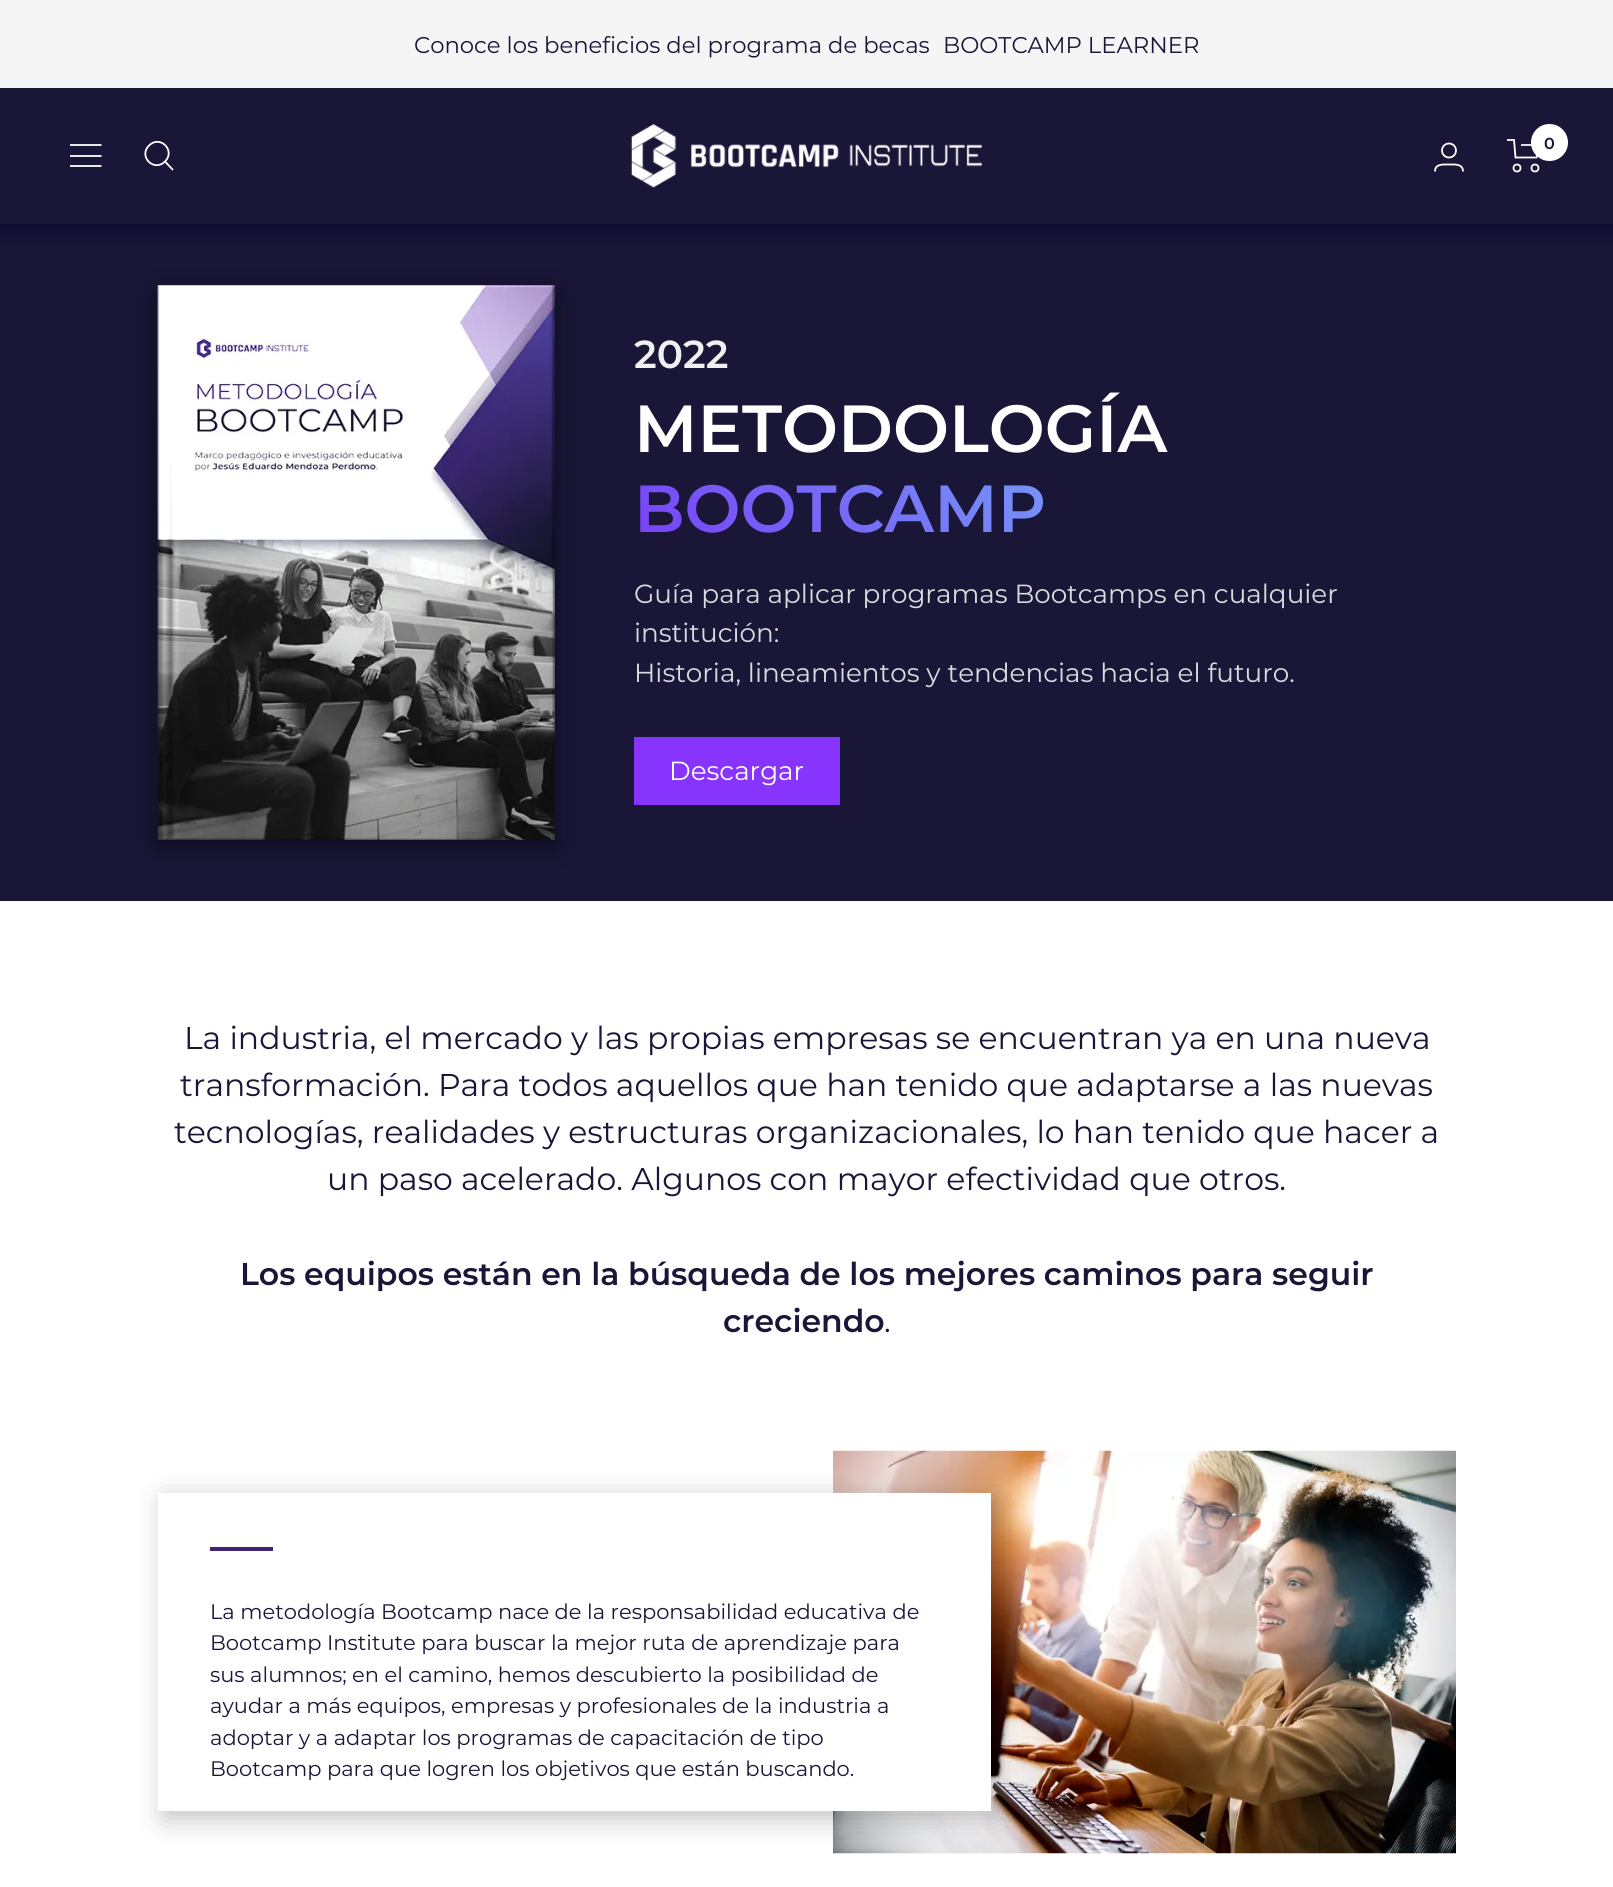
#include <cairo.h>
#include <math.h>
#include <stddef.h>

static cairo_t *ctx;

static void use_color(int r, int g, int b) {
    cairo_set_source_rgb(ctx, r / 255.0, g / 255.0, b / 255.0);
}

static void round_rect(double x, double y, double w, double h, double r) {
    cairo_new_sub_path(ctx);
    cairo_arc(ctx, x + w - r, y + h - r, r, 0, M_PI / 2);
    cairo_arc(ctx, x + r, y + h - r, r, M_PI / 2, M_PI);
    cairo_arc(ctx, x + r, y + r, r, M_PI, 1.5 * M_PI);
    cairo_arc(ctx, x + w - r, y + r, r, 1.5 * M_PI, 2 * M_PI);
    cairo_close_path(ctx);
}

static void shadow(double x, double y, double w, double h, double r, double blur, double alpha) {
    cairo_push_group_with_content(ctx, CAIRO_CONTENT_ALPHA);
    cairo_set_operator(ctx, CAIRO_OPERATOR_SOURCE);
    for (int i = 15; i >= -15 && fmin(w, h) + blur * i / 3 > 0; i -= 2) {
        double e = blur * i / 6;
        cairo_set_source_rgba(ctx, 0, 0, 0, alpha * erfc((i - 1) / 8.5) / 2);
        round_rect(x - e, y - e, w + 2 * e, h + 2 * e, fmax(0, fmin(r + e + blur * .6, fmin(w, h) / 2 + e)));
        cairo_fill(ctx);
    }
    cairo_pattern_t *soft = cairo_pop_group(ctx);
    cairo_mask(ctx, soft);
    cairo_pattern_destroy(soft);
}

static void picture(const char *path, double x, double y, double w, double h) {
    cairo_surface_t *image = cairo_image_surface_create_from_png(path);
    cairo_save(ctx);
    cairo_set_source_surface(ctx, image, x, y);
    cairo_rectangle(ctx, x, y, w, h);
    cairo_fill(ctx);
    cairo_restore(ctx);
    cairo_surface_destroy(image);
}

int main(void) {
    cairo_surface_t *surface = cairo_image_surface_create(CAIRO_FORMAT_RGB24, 1613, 1887);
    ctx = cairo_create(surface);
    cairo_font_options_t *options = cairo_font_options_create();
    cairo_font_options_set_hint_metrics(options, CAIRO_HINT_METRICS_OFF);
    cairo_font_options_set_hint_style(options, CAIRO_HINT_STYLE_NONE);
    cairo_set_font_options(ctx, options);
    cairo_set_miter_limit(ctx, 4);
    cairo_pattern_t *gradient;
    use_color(255, 255, 255);
    cairo_paint(ctx);
    use_color(26, 22, 56);
    cairo_rectangle(ctx, 0, 224, 1613, 677);
    cairo_fill(ctx);
    use_color(8, 3, 43);
    shadow(2, 89, 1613, 137, 0, 13, 1);
    use_color(245, 245, 245);
    cairo_rectangle(ctx, 0, 0, 1613, 88);
    cairo_fill(ctx);
    cairo_select_font_face(ctx, "Montserrat Thin", CAIRO_FONT_SLANT_NORMAL, CAIRO_FONT_WEIGHT_NORMAL);
    cairo_set_font_size(ctx, 22.75);
    use_color(26, 22, 56);
    cairo_move_to(ctx, 414, 53);
    cairo_show_text(ctx, "Conoce los beneficios del programa de becas");
    cairo_move_to(ctx, 943, 53);
    cairo_show_text(ctx, "BOOTCAMP LEARNER");
    cairo_rectangle(ctx, 0, 88, 1613, 136);
    cairo_fill(ctx);
    cairo_new_path(ctx);
    cairo_move_to(ctx, 70, 145);
    cairo_line_to(ctx, 101.5, 145);
    cairo_move_to(ctx, 70, 166);
    cairo_line_to(ctx, 101.5, 166);
    cairo_close_path(ctx);
    cairo_move_to(ctx, 70, 156);
    cairo_line_to(ctx, 101.5, 156);
    cairo_close_path(ctx);
    use_color(255, 255, 255);
    cairo_set_line_width(ctx, 1.8);
    cairo_stroke(ctx);
    cairo_new_path(ctx);
    cairo_move_to(ctx, 165, 161.5);
    cairo_curve_to(ctx, 176, 150.5, 160, 134.5, 149, 145.5);
    cairo_curve_to(ctx, 138, 156.5, 154, 172.5, 165, 161.5);
    cairo_close_path(ctx);
    cairo_move_to(ctx, 165, 161.5);
    cairo_line_to(ctx, 173, 170);
    cairo_stroke(ctx);
    picture("img1.png", 631, 124, 351, 64);
    cairo_arc(ctx, 1449, 150.5, 7, 0, 2 * M_PI);
    cairo_stroke(ctx);
    cairo_new_path(ctx);
    cairo_move_to(ctx, 1435, 171.5);
    cairo_curve_to(ctx, 1435, 163.5, 1443.5, 164.5, 1449, 164.5);
    cairo_curve_to(ctx, 1454.5, 164.5, 1463, 163.5, 1463, 171.5);
    cairo_stroke(ctx);
    cairo_new_path(ctx);
    cairo_move_to(ctx, 1507, 140);
    cairo_line_to(ctx, 1514, 140);
    cairo_line_to(ctx, 1515.5, 157.5);
    cairo_line_to(ctx, 1536.5, 157.5);
    cairo_line_to(ctx, 1540, 145);
    cairo_line_to(ctx, 1521, 145);
    cairo_stroke(ctx);
    cairo_arc(ctx, 1517, 168, 3.5, 0, 2 * M_PI);
    cairo_stroke(ctx);
    cairo_arc(ctx, 1535, 168, 3.5, 0, 2 * M_PI);
    cairo_stroke(ctx);
    cairo_arc(ctx, 1549.5, 142.5, 18.5, 0, 2 * M_PI);
    cairo_fill(ctx);
    cairo_select_font_face(ctx, "Montserrat SemiBold", CAIRO_FONT_SLANT_NORMAL, CAIRO_FONT_WEIGHT_NORMAL);
    cairo_set_font_size(ctx, 16);
    use_color(26, 22, 56);
    cairo_move_to(ctx, 1544, 149);
    cairo_show_text(ctx, "0");
    cairo_save(ctx);
    cairo_set_fill_rule(ctx, CAIRO_FILL_RULE_EVEN_ODD);
    cairo_new_path(ctx);
    cairo_move_to(ctx, 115, 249);
    cairo_line_to(ctx, 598, 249);
    cairo_line_to(ctx, 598, 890);
    cairo_line_to(ctx, 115, 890);
    cairo_close_path(ctx);
    cairo_move_to(ctx, 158, 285);
    cairo_line_to(ctx, 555, 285);
    cairo_line_to(ctx, 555, 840);
    cairo_line_to(ctx, 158, 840);
    cairo_close_path(ctx);
    cairo_clip(ctx);
    use_color(0, 0, 0);
    shadow(158, 292, 397, 555, 0, 14, 0.5);
    cairo_restore(ctx);
    picture("img2.png", 157, 285, 398, 555);
    cairo_set_font_size(ctx, 39);
    use_color(240, 240, 240);
    cairo_move_to(ctx, 634, 368);
    cairo_show_text(ctx, "2022");
    cairo_set_font_size(ctx, 66.5);
    use_color(255, 255, 255);
    cairo_move_to(ctx, 634, 452);
    cairo_show_text(ctx, "METODOLOGÍA");
    gradient = cairo_pattern_create_linear(820, 734, 1270, 283);
    cairo_pattern_add_color_stop_rgba(gradient, 0, 0.467, 0.251, 0.969, 1);
    cairo_pattern_add_color_stop_rgba(gradient, 1, 0.459, 0.875, 0.969, 1);
    cairo_set_source(ctx, gradient);
    cairo_pattern_destroy(gradient);
    cairo_move_to(ctx, 634, 532);
    cairo_show_text(ctx, "BOOTCAMP");
    cairo_select_font_face(ctx, "Montserrat Thin", CAIRO_FONT_SLANT_NORMAL, CAIRO_FONT_WEIGHT_NORMAL);
    cairo_set_font_size(ctx, 26.25);
    use_color(219, 218, 222);
    cairo_move_to(ctx, 634, 603);
    cairo_show_text(ctx, "Guía para aplicar programas Bootcamps en cualquier");
    cairo_move_to(ctx, 634, 642);
    cairo_show_text(ctx, "institución:");
    cairo_move_to(ctx, 634, 682);
    cairo_show_text(ctx, "Historia, lineamientos y tendencias hacia el futuro.");
    use_color(136, 52, 255);
    cairo_rectangle(ctx, 634, 737, 206, 68);
    cairo_fill(ctx);
    use_color(255, 255, 255);
    cairo_move_to(ctx, 669, 780);
    cairo_show_text(ctx, "Descargar");
    cairo_set_font_size(ctx, 31.5);
    use_color(26, 22, 56);
    cairo_move_to(ctx, 184, 1049);
    cairo_show_text(ctx, "La industria, el mercado y las propias empresas se encuentran ya en una nueva");
    cairo_move_to(ctx, 180, 1096);
    cairo_show_text(ctx, "transformación. Para todos aquellos que han tenido que adaptarse a las nuevas");
    cairo_move_to(ctx, 174, 1143);
    cairo_show_text(ctx, "tecnologías, realidades y estructuras organizacionales, lo han tenido que hacer a");
    cairo_move_to(ctx, 327, 1190);
    cairo_show_text(ctx, "un paso acelerado. Algunos con mayor efectividad que otros.");
    cairo_select_font_face(ctx, "Montserrat SemiBold", CAIRO_FONT_SLANT_NORMAL, CAIRO_FONT_WEIGHT_NORMAL);
    cairo_move_to(ctx, 240, 1285);
    cairo_show_text(ctx, "Los equipos están en la búsqueda de los mejores caminos para seguir");
    cairo_move_to(ctx, 723, 1332);
    cairo_show_text(ctx, "creciendo");
    cairo_select_font_face(ctx, "Montserrat Thin", CAIRO_FONT_SLANT_NORMAL, CAIRO_FONT_WEIGHT_NORMAL);
    cairo_move_to(ctx, 884, 1332);
    cairo_show_text(ctx, ".");
    picture("img3.png", 833, 1450, 623, 404);
    use_color(0, 0, 0);
    shadow(165, 1500, 833, 318, 0, 14, 0.25);
    use_color(255, 255, 255);
    cairo_rectangle(ctx, 158, 1493, 833, 318);
    cairo_fill(ctx);
    use_color(62, 37, 119);
    cairo_rectangle(ctx, 210, 1547, 63, 4);
    cairo_fill(ctx);
    cairo_set_font_size(ctx, 21);
    use_color(26, 22, 56);
    cairo_move_to(ctx, 210, 1619);
    cairo_show_text(ctx, "La metodología Bootcamp nace de la responsabilidad educativa de");
    cairo_move_to(ctx, 210, 1650);
    cairo_show_text(ctx, "Bootcamp Institute para buscar la mejor ruta de aprendizaje para");
    cairo_move_to(ctx, 210, 1682);
    cairo_show_text(ctx, "sus alumnos; en el camino, hemos descubierto la posibilidad de");
    cairo_move_to(ctx, 210, 1713);
    cairo_show_text(ctx, "ayudar a más equipos, empresas y profesionales de la industria a");
    cairo_move_to(ctx, 210, 1745);
    cairo_show_text(ctx, "adoptar y a adaptar los programas de capacitación de tipo");
    cairo_move_to(ctx, 210, 1776);
    cairo_show_text(ctx, "Bootcamp para que logren los objetivos que están buscando.");
    cairo_surface_write_to_png(surface, "result.png");
    cairo_font_options_destroy(options);
    cairo_destroy(ctx);
    cairo_surface_destroy(surface);
    return 0;
}
